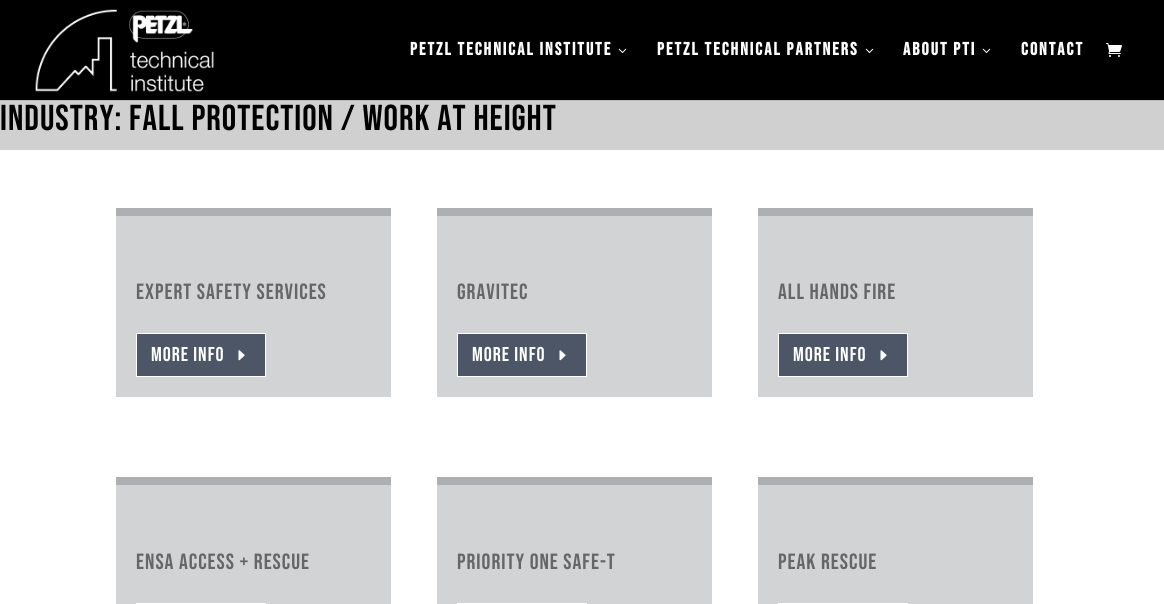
#include <cairo.h>
#include <math.h>
#include <stddef.h>

static cairo_t *ctx;

static void use_color(int r, int g, int b) {
    cairo_set_source_rgb(ctx, r / 255.0, g / 255.0, b / 255.0);
}

static void spaced_text(double x, double y, const char *s, double letter, double word) {
    cairo_move_to(ctx, x, y);
    while (*s) {
        char ch[5] = {0};
        int n = 0;
        do ch[n++] = *s++; while ((*s & 0xC0) == 0x80);
        cairo_show_text(ctx, ch);
        cairo_rel_move_to(ctx, letter + word * (*ch == ' '), 0);
    }
}

static void picture(const char *path, double x, double y, double w, double h) {
    cairo_surface_t *image = cairo_image_surface_create_from_png(path);
    cairo_save(ctx);
    cairo_set_source_surface(ctx, image, x, y);
    cairo_rectangle(ctx, x, y, w, h);
    cairo_fill(ctx);
    cairo_restore(ctx);
    cairo_surface_destroy(image);
}

int main(void) {
    cairo_surface_t *surface = cairo_image_surface_create(CAIRO_FORMAT_RGB24, 1164, 604);
    ctx = cairo_create(surface);
    cairo_font_options_t *options = cairo_font_options_create();
    cairo_font_options_set_hint_metrics(options, CAIRO_HINT_METRICS_OFF);
    cairo_font_options_set_hint_style(options, CAIRO_HINT_STYLE_NONE);
    cairo_set_font_options(ctx, options);
    cairo_set_miter_limit(ctx, 4);
    use_color(255, 255, 255);
    cairo_paint(ctx);
    use_color(187, 187, 187);
    cairo_rectangle(ctx, 0, 100, 1164, 1);
    cairo_fill(ctx);
    use_color(0, 0, 0);
    cairo_rectangle(ctx, 0, 0, 1164, 100);
    cairo_fill(ctx);
    picture("img1.png", 35, 9, 179, 83);
    cairo_select_font_face(ctx, "Bebas Neue", CAIRO_FONT_SLANT_NORMAL, CAIRO_FONT_WEIGHT_BOLD);
    cairo_set_font_size(ctx, 18);
    use_color(255, 255, 255);
    spaced_text(410, 55, "Petzl Technical Institute", 2, 0);
    picture("img2.png", 618, 48, 9, 5);
    spaced_text(657, 55, "Petzl Technical Partners", 2, 0);
    picture("img2.png", 865, 48, 9, 5);
    spaced_text(903, 55, "About PTI", 2, 0);
    picture("img2.png", 982, 48, 9, 5);
    spaced_text(1021, 55, "Contact", 2, 0);
    picture("img3.png", 1106, 43, 16, 14);
    use_color(208, 208, 208);
    cairo_rectangle(ctx, 0, 101, 1164, 49);
    cairo_fill(ctx);
    cairo_select_font_face(ctx, "Bebas Neue", CAIRO_FONT_SLANT_NORMAL, CAIRO_FONT_WEIGHT_NORMAL);
    cairo_set_font_size(ctx, 36);
    use_color(0, 0, 0);
    spaced_text(0, 130, "Industry: Fall Protection / Work at Height", 1, 0);
    use_color(174, 175, 178);
    cairo_rectangle(ctx, 116, 208, 275, 8);
    cairo_fill(ctx);
    use_color(210, 211, 213);
    cairo_rectangle(ctx, 116, 216, 275, 181);
    cairo_fill(ctx);
    cairo_set_font_size(ctx, 22);
    use_color(102, 102, 102);
    spaced_text(136, 299, "Expert Safety Services", 1, 0);
    use_color(76, 86, 102);
    cairo_rectangle(ctx, 136.5, 333.5, 129, 43);
    cairo_fill_preserve(ctx);
    use_color(255, 255, 255);
    cairo_set_line_width(ctx, 1);
    cairo_stroke(ctx);
    cairo_set_font_size(ctx, 20);
    spaced_text(151, 361, "MORE INFO", 1, 0);
    picture("img4.png", 238, 350, 7, 11);
    use_color(174, 175, 178);
    cairo_rectangle(ctx, 437, 208, 275, 8);
    cairo_fill(ctx);
    use_color(210, 211, 213);
    cairo_rectangle(ctx, 437, 216, 275, 181);
    cairo_fill(ctx);
    cairo_set_font_size(ctx, 22);
    use_color(102, 102, 102);
    spaced_text(457, 299, "Gravitec", 1, 0);
    use_color(76, 86, 102);
    cairo_rectangle(ctx, 457.5, 333.5, 129, 43);
    cairo_fill_preserve(ctx);
    use_color(255, 255, 255);
    cairo_stroke(ctx);
    cairo_set_font_size(ctx, 20);
    spaced_text(472, 361, "MORE INFO", 1, 0);
    picture("img4.png", 559, 350, 7, 11);
    use_color(174, 175, 178);
    cairo_rectangle(ctx, 758, 208, 275, 8);
    cairo_fill(ctx);
    use_color(210, 211, 213);
    cairo_rectangle(ctx, 758, 216, 275, 181);
    cairo_fill(ctx);
    cairo_set_font_size(ctx, 22);
    use_color(102, 102, 102);
    spaced_text(778, 299, "All Hands Fire", 1, 0);
    use_color(76, 86, 102);
    cairo_rectangle(ctx, 778.5, 333.5, 129, 43);
    cairo_fill_preserve(ctx);
    use_color(255, 255, 255);
    cairo_stroke(ctx);
    cairo_set_font_size(ctx, 20);
    spaced_text(793, 361, "MORE INFO", 1, 0);
    picture("img4.png", 880, 350, 7, 11);
    use_color(174, 175, 178);
    cairo_rectangle(ctx, 116, 477, 275, 8);
    cairo_fill(ctx);
    use_color(210, 211, 213);
    cairo_rectangle(ctx, 116, 485, 275, 119);
    cairo_fill(ctx);
    cairo_set_font_size(ctx, 22);
    use_color(102, 102, 102);
    spaced_text(136, 569, "ENSA Access + Rescue", 1, 0);
    cairo_rectangle(ctx, 136.5, 603.5, 129, 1);
    use_color(255, 255, 255);
    cairo_stroke(ctx);
    use_color(174, 175, 178);
    cairo_rectangle(ctx, 437, 477, 275, 8);
    cairo_fill(ctx);
    use_color(210, 211, 213);
    cairo_rectangle(ctx, 437, 485, 275, 119);
    cairo_fill(ctx);
    use_color(102, 102, 102);
    spaced_text(457, 569, "Priority One Safe-T", 1, 0);
    cairo_rectangle(ctx, 457.5, 603.5, 129, 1);
    use_color(255, 255, 255);
    cairo_stroke(ctx);
    use_color(174, 175, 178);
    cairo_rectangle(ctx, 758, 477, 275, 8);
    cairo_fill(ctx);
    use_color(210, 211, 213);
    cairo_rectangle(ctx, 758, 485, 275, 119);
    cairo_fill(ctx);
    use_color(102, 102, 102);
    spaced_text(778, 569, "Peak Rescue", 1, 0);
    cairo_rectangle(ctx, 778.5, 603.5, 129, 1);
    use_color(255, 255, 255);
    cairo_stroke(ctx);
    cairo_surface_write_to_png(surface, "result.png");
    cairo_font_options_destroy(options);
    cairo_destroy(ctx);
    cairo_surface_destroy(surface);
    return 0;
}
